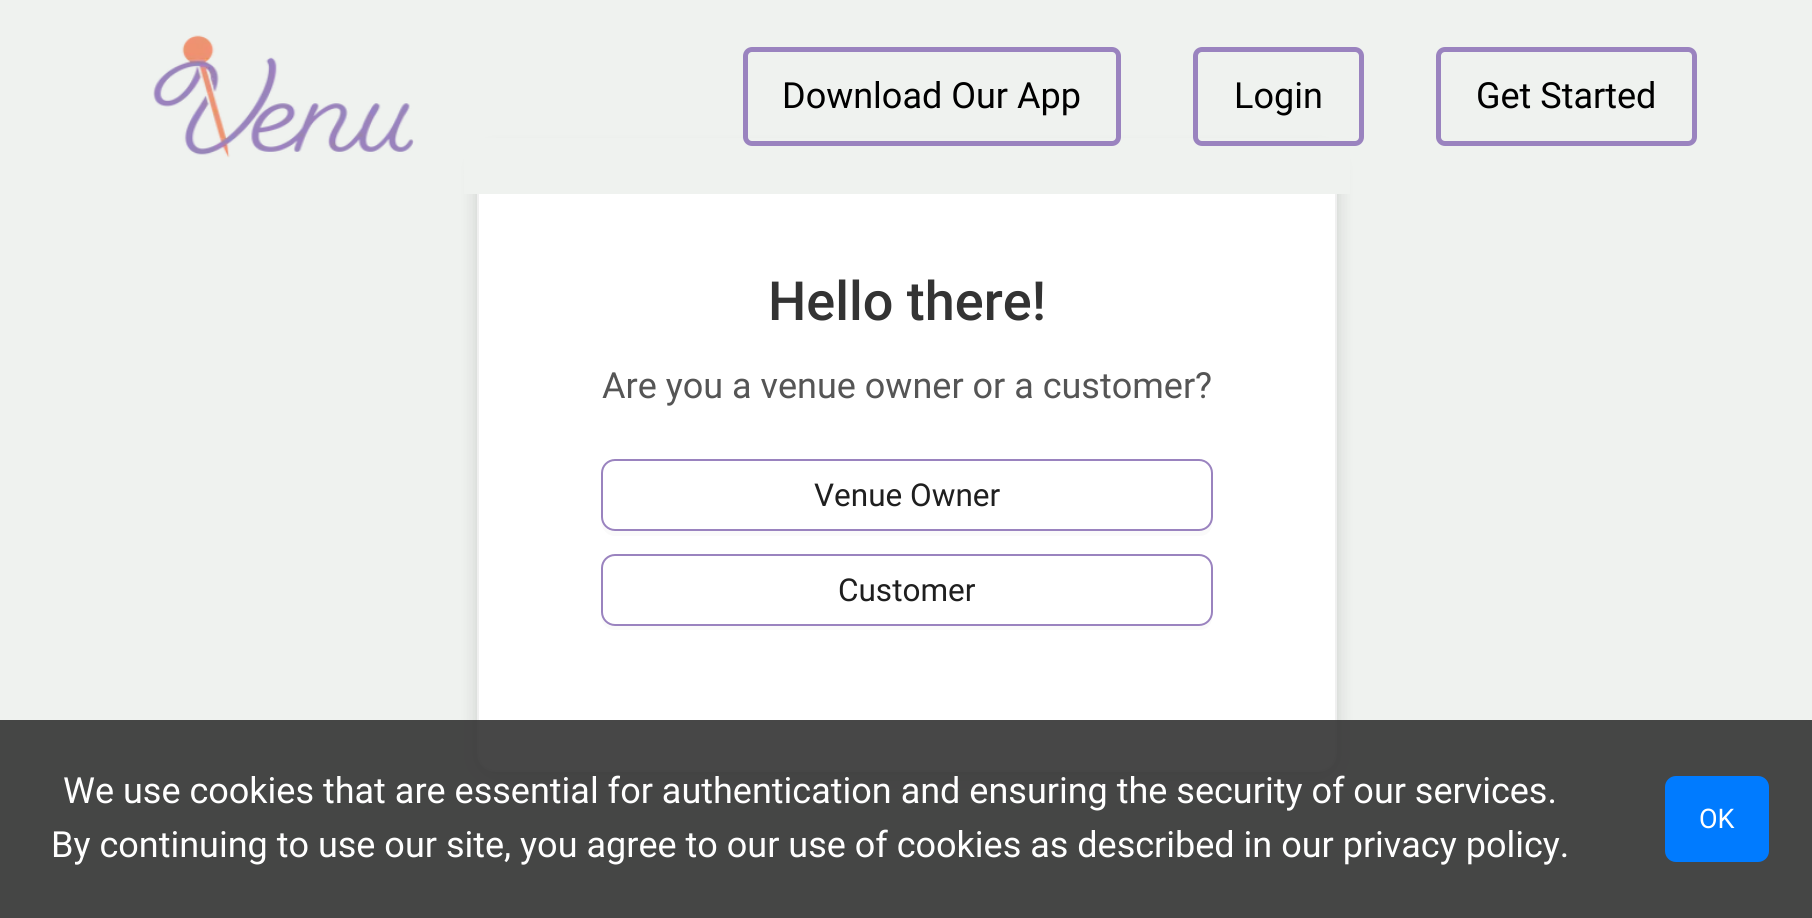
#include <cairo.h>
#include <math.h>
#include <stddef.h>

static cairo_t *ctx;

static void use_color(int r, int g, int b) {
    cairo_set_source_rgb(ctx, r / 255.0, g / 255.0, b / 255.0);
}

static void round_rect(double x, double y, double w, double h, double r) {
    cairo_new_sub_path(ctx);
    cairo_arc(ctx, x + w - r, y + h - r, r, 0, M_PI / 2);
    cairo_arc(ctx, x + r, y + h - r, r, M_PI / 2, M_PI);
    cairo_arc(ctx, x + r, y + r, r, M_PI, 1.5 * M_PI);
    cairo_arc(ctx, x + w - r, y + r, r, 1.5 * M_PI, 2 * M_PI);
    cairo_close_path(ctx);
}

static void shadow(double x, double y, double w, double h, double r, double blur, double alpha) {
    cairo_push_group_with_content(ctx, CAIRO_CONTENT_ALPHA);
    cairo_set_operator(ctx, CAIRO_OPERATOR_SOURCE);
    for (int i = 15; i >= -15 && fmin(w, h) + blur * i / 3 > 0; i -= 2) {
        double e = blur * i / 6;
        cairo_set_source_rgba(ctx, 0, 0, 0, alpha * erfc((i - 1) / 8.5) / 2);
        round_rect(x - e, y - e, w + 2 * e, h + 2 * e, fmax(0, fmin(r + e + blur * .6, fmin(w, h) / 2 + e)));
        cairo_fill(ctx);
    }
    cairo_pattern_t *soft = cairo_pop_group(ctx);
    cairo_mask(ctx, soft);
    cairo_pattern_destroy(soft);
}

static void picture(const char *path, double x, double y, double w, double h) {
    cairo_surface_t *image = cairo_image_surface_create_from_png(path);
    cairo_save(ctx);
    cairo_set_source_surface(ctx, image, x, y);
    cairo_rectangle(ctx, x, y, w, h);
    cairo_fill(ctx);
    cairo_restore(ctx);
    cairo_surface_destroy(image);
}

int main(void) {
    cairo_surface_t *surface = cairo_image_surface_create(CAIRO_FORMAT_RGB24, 1812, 918);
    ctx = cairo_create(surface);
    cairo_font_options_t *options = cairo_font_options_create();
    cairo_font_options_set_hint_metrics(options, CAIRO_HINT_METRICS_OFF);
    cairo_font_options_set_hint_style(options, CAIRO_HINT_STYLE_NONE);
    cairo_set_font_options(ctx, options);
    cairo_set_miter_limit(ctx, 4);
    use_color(239, 242, 239);
    cairo_paint(ctx);
    use_color(0, 0, 0);
    shadow(477, 151, 860, 625, 18, 9, 0.15);
    use_color(255, 255, 255);
    round_rect(478, 147, 858, 624, 17);
    cairo_fill_preserve(ctx);
    use_color(240, 240, 240);
    cairo_stroke(ctx);
    use_color(239, 242, 239);
    cairo_rectangle(ctx, 464, 138, 886, 56);
    cairo_fill(ctx);
    picture("img1.png", 153, 35, 261, 123);
    round_rect(745.5, 49.5, 373, 94, 6.5);
    use_color(154, 131, 191);
    cairo_set_line_width(ctx, 5);
    cairo_stroke(ctx);
    cairo_select_font_face(ctx, "Roboto", CAIRO_FONT_SLANT_NORMAL, CAIRO_FONT_WEIGHT_NORMAL);
    cairo_set_font_size(ctx, 36);
    use_color(0, 0, 0);
    cairo_move_to(ctx, 782, 108);
    cairo_show_text(ctx, "Download Our App");
    round_rect(1195.5, 49.5, 166, 94, 6.5);
    use_color(154, 131, 191);
    cairo_stroke(ctx);
    use_color(0, 0, 0);
    cairo_move_to(ctx, 1234, 108);
    cairo_show_text(ctx, "Login");
    round_rect(1438.5, 49.5, 256, 94, 6.5);
    use_color(154, 131, 191);
    cairo_stroke(ctx);
    use_color(0, 0, 0);
    cairo_move_to(ctx, 1476, 108);
    cairo_show_text(ctx, "Get Started");
    cairo_select_font_face(ctx, "Roboto Medium", CAIRO_FONT_SLANT_NORMAL, CAIRO_FONT_WEIGHT_NORMAL);
    cairo_set_font_size(ctx, 54);
    use_color(51, 51, 51);
    cairo_move_to(ctx, 768, 320);
    cairo_show_text(ctx, "Hello there!");
    cairo_select_font_face(ctx, "Roboto", CAIRO_FONT_SLANT_NORMAL, CAIRO_FONT_WEIGHT_NORMAL);
    cairo_set_font_size(ctx, 36);
    use_color(85, 85, 85);
    cairo_move_to(ctx, 602, 398);
    cairo_show_text(ctx, "Are you a venue owner or a customer?");
    use_color(250, 250, 250);
    cairo_new_path(ctx);
    cairo_move_to(ctx, 601, 520);
    cairo_curve_to(ctx, 601, 528, 606, 536, 615, 536);
    cairo_line_to(ctx, 1199, 536);
    cairo_curve_to(ctx, 1215, 536, 1213, 518, 1213, 507);
    cairo_line_to(ctx, 1213, 475);
    cairo_line_to(ctx, 1213, 518);
    cairo_curve_to(ctx, 1213, 525, 1207, 531, 1199, 531);
    cairo_line_to(ctx, 614, 531);
    cairo_curve_to(ctx, 608, 531, 602, 526, 601, 520);
    cairo_close_path(ctx);
    cairo_fill(ctx);
    round_rect(602, 460, 610, 70, 13);
    use_color(154, 131, 191);
    cairo_set_line_width(ctx, 2);
    cairo_stroke(ctx);
    cairo_set_font_size(ctx, 31.5);
    use_color(31, 31, 31);
    cairo_move_to(ctx, 814, 506);
    cairo_show_text(ctx, "Venue Owner");
    use_color(250, 250, 250);
    cairo_new_path(ctx);
    cairo_move_to(ctx, 601, 615);
    cairo_curve_to(ctx, 601, 623, 606, 630, 615, 630);
    cairo_line_to(ctx, 1199, 630);
    cairo_curve_to(ctx, 1215, 630, 1213, 612, 1213, 601);
    cairo_line_to(ctx, 1213, 569);
    cairo_line_to(ctx, 1213, 612);
    cairo_curve_to(ctx, 1213, 619, 1207, 626, 1199, 626);
    cairo_line_to(ctx, 614, 626);
    cairo_curve_to(ctx, 608, 626, 602, 621, 601, 615);
    cairo_close_path(ctx);
    cairo_fill(ctx);
    round_rect(602, 555, 610, 70, 13);
    use_color(154, 131, 191);
    cairo_stroke(ctx);
    use_color(31, 31, 31);
    cairo_move_to(ctx, 838, 601);
    cairo_show_text(ctx, "Customer");
    cairo_set_source_rgba(ctx, 0.2, 0.2, 0.2, 0.9);
    cairo_rectangle(ctx, 0, 720, 1812, 198);
    cairo_fill(ctx);
    cairo_set_font_size(ctx, 36);
    use_color(255, 255, 255);
    cairo_move_to(ctx, 63, 803);
    cairo_show_text(ctx, "We use cookies that are essential for authentication and ensuring the security of our services.");
    use_color(0, 123, 255);
    round_rect(1665, 776, 104, 86, 11);
    cairo_fill(ctx);
    cairo_set_font_size(ctx, 27);
    use_color(255, 255, 255);
    cairo_move_to(ctx, 1699, 828);
    cairo_show_text(ctx, "OK");
    cairo_set_font_size(ctx, 36);
    cairo_move_to(ctx, 51, 857);
    cairo_show_text(ctx, "By continuing to use our site, you agree to our use of cookies as described in our privacy policy.");
    cairo_surface_write_to_png(surface, "result.png");
    cairo_font_options_destroy(options);
    cairo_destroy(ctx);
    cairo_surface_destroy(surface);
    return 0;
}
